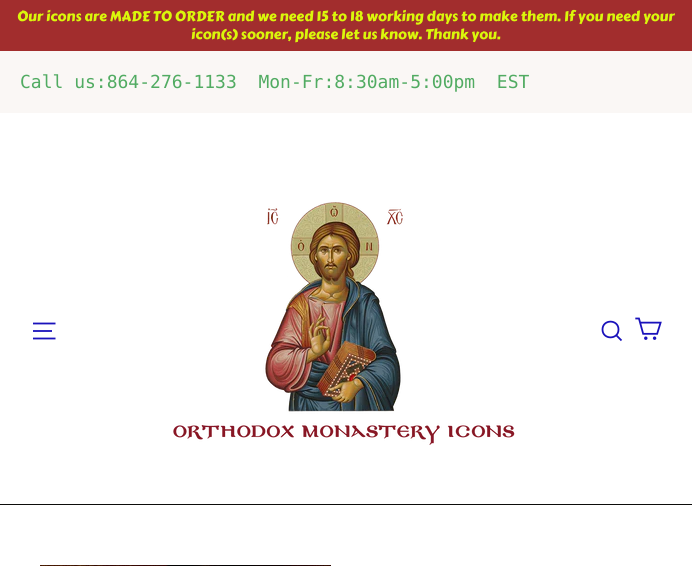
#include <cairo.h>
#include <math.h>
#include <stddef.h>

static cairo_t *ctx;

static void use_color(int r, int g, int b) {
    cairo_set_source_rgb(ctx, r / 255.0, g / 255.0, b / 255.0);
}

static void picture(const char *path, double x, double y, double w, double h) {
    cairo_surface_t *image = cairo_image_surface_create_from_png(path);
    cairo_save(ctx);
    cairo_set_source_surface(ctx, image, x, y);
    cairo_rectangle(ctx, x, y, w, h);
    cairo_fill(ctx);
    cairo_restore(ctx);
    cairo_surface_destroy(image);
}

int main(void) {
    cairo_surface_t *surface = cairo_image_surface_create(CAIRO_FORMAT_RGB24, 692, 566);
    ctx = cairo_create(surface);
    cairo_font_options_t *options = cairo_font_options_create();
    cairo_font_options_set_hint_metrics(options, CAIRO_HINT_METRICS_OFF);
    cairo_font_options_set_hint_style(options, CAIRO_HINT_STYLE_NONE);
    cairo_set_font_options(ctx, options);
    cairo_set_miter_limit(ctx, 4);
    use_color(255, 255, 255);
    cairo_paint(ctx);
    use_color(162, 45, 45);
    cairo_rectangle(ctx, 0, 0, 692, 51);
    cairo_fill(ctx);
    cairo_select_font_face(ctx, "Carter One", CAIRO_FONT_SLANT_NORMAL, CAIRO_FONT_WEIGHT_NORMAL);
    cairo_set_font_size(ctx, 14);
    use_color(218, 247, 11);
    cairo_move_to(ctx, 17, 21);
    cairo_show_text(ctx, "Our icons are MADE TO ORDER and we need 15 to 18 working days to make them. If you need your");
    cairo_move_to(ctx, 191, 39);
    cairo_show_text(ctx, "icon(s) sooner, please let us know. Thank you.");
    use_color(250, 247, 245);
    cairo_rectangle(ctx, 0, 51, 692, 62);
    cairo_fill(ctx);
    cairo_select_font_face(ctx, "DejaVu Sans Mono", CAIRO_FONT_SLANT_NORMAL, CAIRO_FONT_WEIGHT_NORMAL);
    cairo_set_font_size(ctx, 18);
    use_color(81, 171, 98);
    cairo_move_to(ctx, 20, 88);
    cairo_show_text(ctx, "Call us:864-276-1133  Mon-Fr:8:30am-5:00pm  EST");
    use_color(13, 13, 11);
    cairo_rectangle(ctx, 0, 504, 692, 1);
    cairo_fill(ctx);
    cairo_new_path(ctx);
    cairo_move_to(ctx, 33, 323.5);
    cairo_line_to(ctx, 55.5, 323.5);
    cairo_move_to(ctx, 33, 331);
    cairo_line_to(ctx, 52, 331);
    cairo_move_to(ctx, 33, 338.5);
    cairo_line_to(ctx, 55.5, 338.5);
    use_color(26, 18, 187);
    cairo_set_line_width(ctx, 1.8);
    cairo_stroke(ctx);
    picture("img1.png", 173, 202, 342, 243);
    cairo_new_path(ctx);
    cairo_move_to(ctx, 618.5, 329.5);
    cairo_curve_to(ctx, 618.5, 340, 602.5, 340, 602.5, 329.5);
    cairo_curve_to(ctx, 602.5, 319, 618.5, 319, 618.5, 329.5);
    cairo_close_path(ctx);
    cairo_move_to(ctx, 621.5, 340.5);
    cairo_line_to(ctx, 616.5, 335.5);
    cairo_stroke(ctx);
    picture("img2.png", 635, 317, 27, 23);
    picture("img3.png", 40, 565, 291, 1);
    cairo_surface_write_to_png(surface, "result.png");
    cairo_font_options_destroy(options);
    cairo_destroy(ctx);
    cairo_surface_destroy(surface);
    return 0;
}
